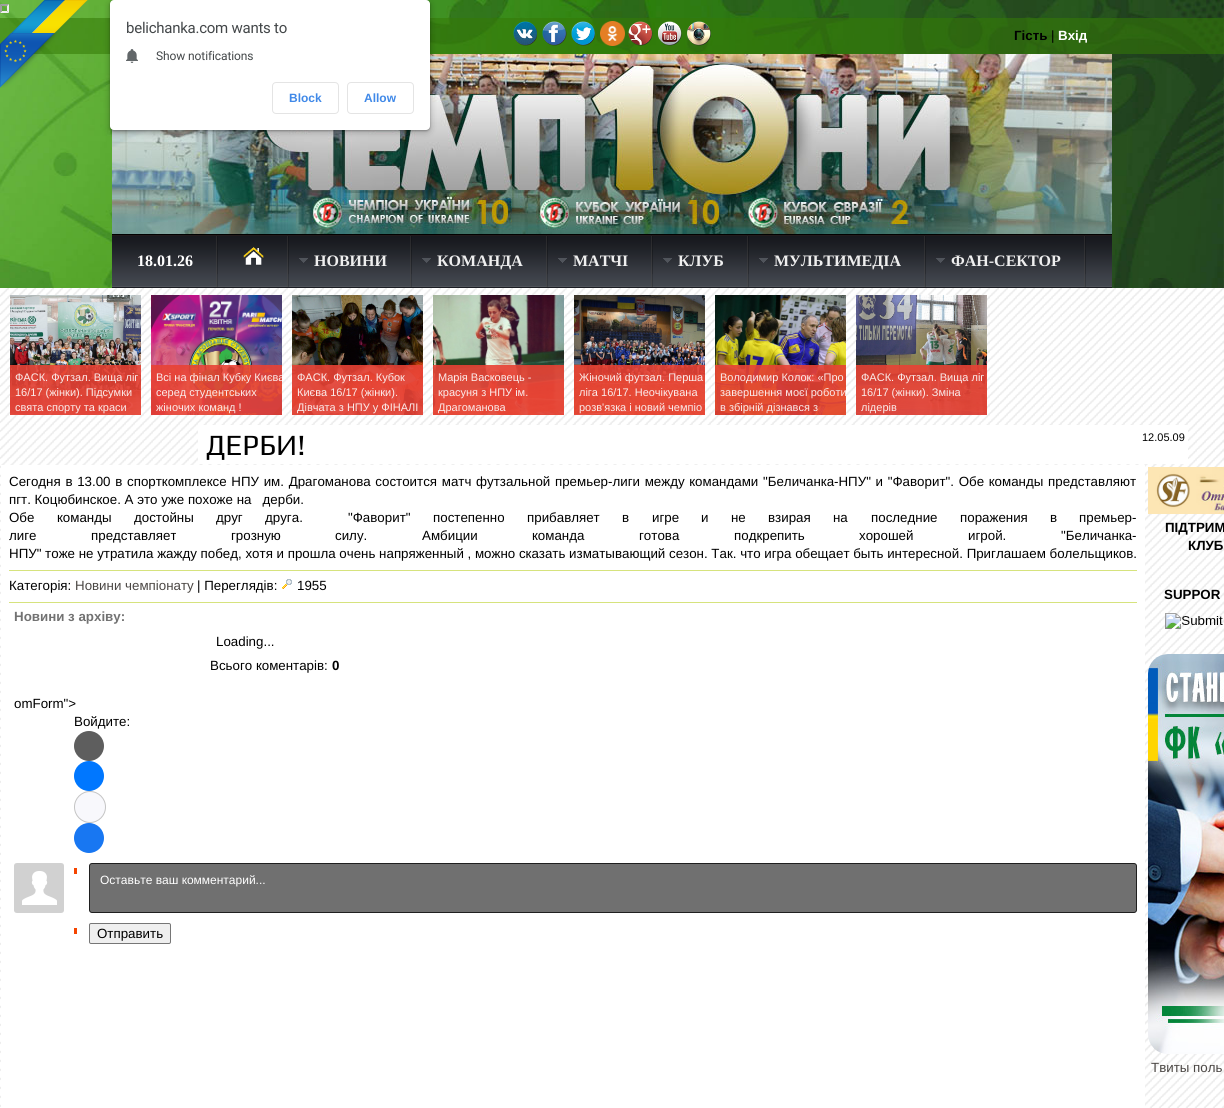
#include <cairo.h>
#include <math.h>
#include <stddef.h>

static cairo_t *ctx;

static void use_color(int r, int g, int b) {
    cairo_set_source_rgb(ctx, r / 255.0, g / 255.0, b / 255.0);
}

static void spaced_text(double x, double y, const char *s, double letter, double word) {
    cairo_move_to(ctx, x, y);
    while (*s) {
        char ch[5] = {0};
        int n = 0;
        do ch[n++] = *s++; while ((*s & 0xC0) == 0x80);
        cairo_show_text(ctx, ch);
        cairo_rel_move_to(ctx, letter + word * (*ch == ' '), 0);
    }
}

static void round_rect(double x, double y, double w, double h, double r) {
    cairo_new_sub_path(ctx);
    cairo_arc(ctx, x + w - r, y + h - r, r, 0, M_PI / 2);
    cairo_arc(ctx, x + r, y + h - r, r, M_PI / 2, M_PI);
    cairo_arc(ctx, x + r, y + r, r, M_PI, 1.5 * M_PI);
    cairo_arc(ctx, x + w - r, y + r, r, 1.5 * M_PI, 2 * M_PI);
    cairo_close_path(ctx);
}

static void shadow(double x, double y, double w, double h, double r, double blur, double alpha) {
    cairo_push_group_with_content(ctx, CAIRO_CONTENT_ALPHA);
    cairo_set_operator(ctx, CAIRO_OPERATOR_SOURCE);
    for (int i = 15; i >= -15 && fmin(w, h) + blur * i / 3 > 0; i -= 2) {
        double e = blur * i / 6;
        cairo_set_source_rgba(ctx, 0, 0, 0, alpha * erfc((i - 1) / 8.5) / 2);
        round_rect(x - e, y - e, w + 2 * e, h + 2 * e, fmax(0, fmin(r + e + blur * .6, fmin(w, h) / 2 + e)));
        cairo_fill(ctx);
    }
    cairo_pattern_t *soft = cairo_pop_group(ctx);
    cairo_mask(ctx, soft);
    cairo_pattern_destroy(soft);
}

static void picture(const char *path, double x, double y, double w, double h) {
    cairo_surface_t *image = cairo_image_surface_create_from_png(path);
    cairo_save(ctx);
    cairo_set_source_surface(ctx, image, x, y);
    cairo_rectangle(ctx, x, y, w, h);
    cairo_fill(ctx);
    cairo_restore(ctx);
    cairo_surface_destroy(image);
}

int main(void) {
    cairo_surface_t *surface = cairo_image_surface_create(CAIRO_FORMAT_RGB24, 1224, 1108);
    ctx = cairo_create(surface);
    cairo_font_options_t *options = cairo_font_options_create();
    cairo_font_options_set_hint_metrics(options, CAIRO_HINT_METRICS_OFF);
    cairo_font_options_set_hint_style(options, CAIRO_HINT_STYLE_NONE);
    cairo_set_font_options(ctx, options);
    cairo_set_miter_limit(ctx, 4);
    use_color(255, 255, 255);
    cairo_paint(ctx);
    picture("img1.png", 0, 0, 1224, 288);
    picture("img2.png", 1223, 0, 1, 288);
    use_color(159, 159, 159);
    cairo_new_path(ctx);
    cairo_move_to(ctx, 0, 4);
    cairo_line_to(ctx, 9, 4);
    cairo_line_to(ctx, 7, 6);
    cairo_line_to(ctx, 2, 6);
    cairo_close_path(ctx);
    cairo_fill(ctx);
    use_color(238, 238, 238);
    cairo_new_path(ctx);
    cairo_move_to(ctx, 9, 4);
    cairo_line_to(ctx, 9, 13);
    cairo_line_to(ctx, 7, 11);
    cairo_line_to(ctx, 7, 6);
    cairo_close_path(ctx);
    cairo_fill(ctx);
    cairo_new_path(ctx);
    cairo_move_to(ctx, 9, 13);
    cairo_line_to(ctx, 0, 13);
    cairo_line_to(ctx, 2, 11);
    cairo_line_to(ctx, 7, 11);
    cairo_close_path(ctx);
    cairo_fill(ctx);
    use_color(159, 159, 159);
    cairo_new_path(ctx);
    cairo_move_to(ctx, 0, 13);
    cairo_line_to(ctx, 0, 4);
    cairo_line_to(ctx, 2, 6);
    cairo_line_to(ctx, 2, 11);
    cairo_close_path(ctx);
    cairo_fill(ctx);
    cairo_set_source_rgba(ctx, 0.204, 0.475, 0.027, 0.56);
    cairo_rectangle(ctx, 0, 18, 1224, 36);
    cairo_fill(ctx);
    picture("img3.png", 0, 0, 88, 88);
    picture("img12.png", 112, 54, 1000, 180);
    use_color(0, 0, 0);
    shadow(108, 0, 324, 134, 6, 3, 0.15);
    shadow(110, 1, 320, 130, 4, 1, 0.3);
    use_color(255, 255, 255);
    round_rect(110, 0, 320, 130, 4);
    cairo_fill(ctx);
    cairo_select_font_face(ctx, "Roboto", CAIRO_FONT_SLANT_NORMAL, CAIRO_FONT_WEIGHT_NORMAL);
    cairo_set_font_size(ctx, 15);
    use_color(67, 71, 73);
    spaced_text(126, 33, "belichanka.com wants to", -0.25, 0);
    picture("img4.png", 126, 49, 12, 14);
    cairo_set_font_size(ctx, 12);
    spaced_text(156, 60, "Show notifications", -0.1, 0);
    round_rect(272.5, 82.5, 66, 31, 3.5);
    use_color(228, 228, 228);
    cairo_set_line_width(ctx, 1);
    cairo_stroke(ctx);
    cairo_select_font_face(ctx, "Liberation Sans", CAIRO_FONT_SLANT_NORMAL, CAIRO_FONT_WEIGHT_BOLD);
    use_color(64, 137, 232);
    cairo_move_to(ctx, 289, 102);
    cairo_show_text(ctx, "Block");
    round_rect(347.5, 82.5, 66, 31, 3.5);
    use_color(228, 228, 228);
    cairo_stroke(ctx);
    use_color(64, 137, 232);
    cairo_move_to(ctx, 364, 102);
    cairo_show_text(ctx, "Allow");
    picture("img5.png", 513, 21, 24, 25);
    picture("img6.png", 542, 21, 25, 25);
    picture("img7.png", 571, 21, 24, 25);
    picture("img8.png", 600, 21, 25, 25);
    picture("img9.png", 628, 21, 25, 25);
    picture("img10.png", 658, 21, 24, 25);
    picture("img11.png", 687, 21, 24, 25);
    cairo_set_font_size(ctx, 13.33);
    use_color(0, 0, 0);
    cairo_move_to(ctx, 1014, 40);
    cairo_show_text(ctx, "Гість");
    cairo_select_font_face(ctx, "Liberation Sans", CAIRO_FONT_SLANT_NORMAL, CAIRO_FONT_WEIGHT_NORMAL);
    cairo_move_to(ctx, 1051, 40);
    cairo_show_text(ctx, "|");
    cairo_select_font_face(ctx, "Liberation Sans", CAIRO_FONT_SLANT_NORMAL, CAIRO_FONT_WEIGHT_BOLD);
    use_color(255, 255, 255);
    cairo_move_to(ctx, 1058, 40);
    cairo_show_text(ctx, "Вхід");
    picture("img13.png", 112, 234, 1000, 54);
    picture("img14.png", 216, 236, 2, 51);
    cairo_select_font_face(ctx, "Liberation Serif", CAIRO_FONT_SLANT_NORMAL, CAIRO_FONT_WEIGHT_BOLD);
    cairo_set_font_size(ctx, 16);
    cairo_move_to(ctx, 137, 266);
    cairo_show_text(ctx, "18.01.26");
    picture("img14.png", 287, 236, 2, 51);
    picture("img15.png", 243, 247, 21, 19);
    picture("img16.png", 299, 258, 9, 5);
    picture("img14.png", 410, 236, 2, 51);
    use_color(239, 239, 239);
    cairo_move_to(ctx, 314, 266);
    cairo_show_text(ctx, "НОВИНИ");
    picture("img16.png", 422, 258, 9, 5);
    picture("img14.png", 546, 236, 2, 51);
    cairo_move_to(ctx, 437, 266);
    cairo_show_text(ctx, "КОМАНДА");
    picture("img17.png", 558, 258, 9, 5);
    picture("img14.png", 651, 236, 2, 51);
    cairo_move_to(ctx, 573, 266);
    cairo_show_text(ctx, "МАТЧІ");
    picture("img16.png", 663, 258, 9, 5);
    picture("img14.png", 747, 236, 2, 51);
    cairo_move_to(ctx, 678, 266);
    cairo_show_text(ctx, "КЛУБ");
    picture("img17.png", 759, 258, 9, 5);
    picture("img14.png", 924, 236, 2, 51);
    cairo_move_to(ctx, 774, 266);
    cairo_show_text(ctx, "МУЛЬТИМЕДІА");
    picture("img16.png", 936, 258, 9, 5);
    picture("img14.png", 1084, 236, 2, 51);
    cairo_move_to(ctx, 951, 266);
    cairo_show_text(ctx, "ФАН-СЕКТОР");
    picture("img18.png", 0, 288, 1224, 820);
    picture("img19.png", 10, 295, 131, 120);
    cairo_set_source_rgba(ctx, 0.91, 0.259, 0.208, 0.9);
    cairo_rectangle(ctx, 10, 365, 131, 50);
    cairo_fill(ctx);
    cairo_select_font_face(ctx, "Liberation Sans", CAIRO_FONT_SLANT_NORMAL, CAIRO_FONT_WEIGHT_NORMAL);
    cairo_set_font_size(ctx, 11);
    use_color(251, 236, 235);
    cairo_move_to(ctx, 15, 381);
    cairo_show_text(ctx, "ФАСК. Футзал. Вища ліг");
    cairo_move_to(ctx, 15, 396);
    cairo_show_text(ctx, "16/17 (жінки). Підсумки");
    cairo_move_to(ctx, 15, 411);
    cairo_show_text(ctx, "свята спорту та краси");
    picture("img20.png", 151, 295, 131, 120);
    cairo_set_source_rgba(ctx, 0.91, 0.259, 0.208, 0.9);
    cairo_rectangle(ctx, 151, 365, 131, 50);
    cairo_fill(ctx);
    cairo_save(ctx);
    cairo_rectangle(ctx, 151, 365, 131, 50);
    cairo_clip(ctx);
    use_color(251, 236, 235);
    cairo_move_to(ctx, 156, 381);
    cairo_show_text(ctx, "Всі на фінал Кубку Києва");
    cairo_restore(ctx);
    use_color(251, 236, 235);
    cairo_move_to(ctx, 156, 396);
    cairo_show_text(ctx, "серед студентських");
    cairo_move_to(ctx, 156, 411);
    cairo_show_text(ctx, "жіночих команд !");
    picture("img21.png", 292, 295, 131, 120);
    cairo_set_source_rgba(ctx, 0.91, 0.259, 0.208, 0.9);
    cairo_rectangle(ctx, 292, 365, 131, 50);
    cairo_fill(ctx);
    use_color(251, 236, 235);
    cairo_move_to(ctx, 297, 381);
    cairo_show_text(ctx, "ФАСК. Футзал. Кубок");
    cairo_move_to(ctx, 297, 396);
    cairo_show_text(ctx, "Києва 16/17 (жінки).");
    cairo_move_to(ctx, 297, 411);
    cairo_show_text(ctx, "Дівчата з НПУ у ФІНАЛІ");
    picture("img22.png", 433, 295, 131, 120);
    cairo_set_source_rgba(ctx, 0.91, 0.259, 0.208, 0.9);
    cairo_rectangle(ctx, 433, 365, 131, 50);
    cairo_fill(ctx);
    use_color(251, 236, 235);
    cairo_move_to(ctx, 438, 381);
    cairo_show_text(ctx, "Марія Васковець -");
    cairo_move_to(ctx, 438, 396);
    cairo_show_text(ctx, "красуня з НПУ ім.");
    cairo_move_to(ctx, 438, 411);
    cairo_show_text(ctx, "Драгоманова");
    picture("img23.png", 574, 295, 131, 120);
    cairo_set_source_rgba(ctx, 0.91, 0.259, 0.208, 0.9);
    cairo_rectangle(ctx, 574, 365, 131, 50);
    cairo_fill(ctx);
    use_color(251, 236, 235);
    cairo_move_to(ctx, 579, 381);
    cairo_show_text(ctx, "Жіночий футзал. Перша");
    cairo_move_to(ctx, 579, 396);
    cairo_show_text(ctx, "ліга 16/17. Неочікувана");
    cairo_move_to(ctx, 579, 411);
    cairo_show_text(ctx, "розв'язка і новий чемпіо");
    picture("img24.png", 715, 295, 131, 120);
    cairo_set_source_rgba(ctx, 0.91, 0.259, 0.208, 0.9);
    cairo_rectangle(ctx, 715, 365, 131, 50);
    cairo_fill(ctx);
    use_color(251, 236, 235);
    cairo_move_to(ctx, 720, 381);
    cairo_show_text(ctx, "Володимир Колок: «Про");
    cairo_move_to(ctx, 720, 396);
    cairo_show_text(ctx, "завершення моєї роботи");
    cairo_move_to(ctx, 720, 411);
    cairo_show_text(ctx, "в збірній дізнався з");
    picture("img25.png", 856, 295, 131, 120);
    cairo_set_source_rgba(ctx, 0.91, 0.259, 0.208, 0.9);
    cairo_rectangle(ctx, 856, 365, 131, 50);
    cairo_fill(ctx);
    use_color(251, 236, 235);
    cairo_move_to(ctx, 861, 381);
    cairo_show_text(ctx, "ФАСК. Футзал. Вища ліг");
    cairo_move_to(ctx, 861, 396);
    cairo_show_text(ctx, "16/17 (жінки). Зміна");
    cairo_move_to(ctx, 861, 411);
    cairo_show_text(ctx, "лідерів");
    use_color(255, 255, 255);
    cairo_rectangle(ctx, 198, 425, 990, 39);
    cairo_fill(ctx);
    cairo_select_font_face(ctx, "Play", CAIRO_FONT_SLANT_NORMAL, CAIRO_FONT_WEIGHT_NORMAL);
    cairo_set_font_size(ctx, 29.5);
    use_color(0, 0, 0);
    cairo_move_to(ctx, 206, 455);
    cairo_show_text(ctx, "ДЕРБИ!");
    cairo_select_font_face(ctx, "Liberation Sans", CAIRO_FONT_SLANT_NORMAL, CAIRO_FONT_WEIGHT_NORMAL);
    cairo_set_font_size(ctx, 11);
    cairo_move_to(ctx, 1142, 441);
    cairo_show_text(ctx, "12.05.09");
    use_color(255, 255, 255);
    cairo_rectangle(ctx, 1, 465, 1144, 643);
    cairo_fill(ctx);
    cairo_set_font_size(ctx, 13.33);
    use_color(0, 0, 0);
    spaced_text(9, 486, "Сегодня в 13.00 в спорткомплексе НПУ им. Драгоманова состоится матч футзальной премьер-лиги между командами \"Беличанка-НПУ\" и \"Фаворит\". Обе команды представляют", 0, 1);
    cairo_move_to(ctx, 9, 504);
    cairo_show_text(ctx, "пгт. Коцюбинское. А это уже похоже на   дерби.");
    cairo_move_to(ctx, 9, 522);
    cairo_show_text(ctx, "Обе");
    cairo_move_to(ctx, 57, 522);
    cairo_show_text(ctx, "команды");
    cairo_move_to(ctx, 134, 522);
    cairo_show_text(ctx, "достойны");
    cairo_move_to(ctx, 216, 522);
    cairo_show_text(ctx, "друг");
    cairo_move_to(ctx, 265, 522);
    cairo_show_text(ctx, "друга.");
    cairo_move_to(ctx, 348, 522);
    cairo_show_text(ctx, "\"Фаворит\"");
    cairo_move_to(ctx, 433, 522);
    cairo_show_text(ctx, "постепенно");
    cairo_move_to(ctx, 527, 522);
    cairo_show_text(ctx, "прибавляет");
    cairo_move_to(ctx, 622, 522);
    cairo_show_text(ctx, "в");
    cairo_move_to(ctx, 652, 522);
    cairo_show_text(ctx, "игре");
    cairo_move_to(ctx, 701, 522);
    cairo_show_text(ctx, "и");
    cairo_move_to(ctx, 731, 522);
    cairo_show_text(ctx, "не");
    cairo_move_to(ctx, 768, 522);
    cairo_show_text(ctx, "взирая");
    cairo_move_to(ctx, 833, 522);
    cairo_show_text(ctx, "на");
    cairo_move_to(ctx, 871, 522);
    cairo_show_text(ctx, "последние");
    cairo_move_to(ctx, 960, 522);
    cairo_show_text(ctx, "поражения");
    cairo_move_to(ctx, 1050, 522);
    cairo_show_text(ctx, "в");
    cairo_move_to(ctx, 1079, 522);
    cairo_show_text(ctx, "премьер-");
    cairo_move_to(ctx, 9, 540);
    cairo_show_text(ctx, "лиге");
    cairo_move_to(ctx, 91, 540);
    cairo_show_text(ctx, "представляет");
    cairo_move_to(ctx, 231, 540);
    cairo_show_text(ctx, "грозную");
    cairo_move_to(ctx, 335, 540);
    cairo_show_text(ctx, "силу.");
    cairo_move_to(ctx, 422, 540);
    cairo_show_text(ctx, "Амбиции");
    cairo_move_to(ctx, 532, 540);
    cairo_show_text(ctx, "команда");
    cairo_move_to(ctx, 639, 540);
    cairo_show_text(ctx, "готова");
    cairo_move_to(ctx, 734, 540);
    cairo_show_text(ctx, "подкрепить");
    cairo_move_to(ctx, 859, 540);
    cairo_show_text(ctx, "хорошей");
    cairo_move_to(ctx, 968, 540);
    cairo_show_text(ctx, "игрой.");
    cairo_move_to(ctx, 1061, 540);
    cairo_show_text(ctx, "\"Беличанка-");
    cairo_move_to(ctx, 9, 558);
    cairo_show_text(ctx, "НПУ\" тоже не утратила жажду побед, хотя и прошла очень напряженный , можно сказать изматывающий сезон. Так. что игра обещает быть интересной. Приглашаем болельщиков.");
    use_color(214, 227, 125);
    cairo_rectangle(ctx, 9, 570, 1128, 1);
    cairo_fill(ctx);
    use_color(0, 0, 0);
    cairo_move_to(ctx, 9, 590);
    cairo_show_text(ctx, "Категорія:");
    use_color(75, 71, 68);
    cairo_move_to(ctx, 75, 590);
    cairo_show_text(ctx, "Новини чемпіонату");
    use_color(0, 0, 0);
    cairo_move_to(ctx, 197, 590);
    cairo_show_text(ctx, "| Переглядів:");
    picture("img26.png", 282, 579, 10, 10);
    cairo_move_to(ctx, 297, 590);
    cairo_show_text(ctx, "1955");
    use_color(214, 227, 125);
    cairo_rectangle(ctx, 9, 602, 1128, 1);
    cairo_fill(ctx);
    cairo_select_font_face(ctx, "Liberation Sans", CAIRO_FONT_SLANT_NORMAL, CAIRO_FONT_WEIGHT_BOLD);
    use_color(114, 114, 114);
    cairo_move_to(ctx, 14, 621);
    cairo_show_text(ctx, "Новини з архіву:");
    cairo_select_font_face(ctx, "Liberation Sans", CAIRO_FONT_SLANT_NORMAL, CAIRO_FONT_WEIGHT_NORMAL);
    use_color(0, 0, 0);
    cairo_move_to(ctx, 216, 646);
    cairo_show_text(ctx, "Loading...");
    cairo_move_to(ctx, 210, 670);
    cairo_show_text(ctx, "Всього коментарів:");
    cairo_select_font_face(ctx, "Liberation Sans", CAIRO_FONT_SLANT_NORMAL, CAIRO_FONT_WEIGHT_BOLD);
    cairo_move_to(ctx, 332, 670);
    cairo_show_text(ctx, "0");
    cairo_select_font_face(ctx, "Liberation Sans", CAIRO_FONT_SLANT_NORMAL, CAIRO_FONT_WEIGHT_NORMAL);
    cairo_move_to(ctx, 14, 708);
    cairo_show_text(ctx, "omForm\">");
    cairo_move_to(ctx, 74, 726);
    cairo_show_text(ctx, "Войдите:");
    use_color(94, 94, 94);
    cairo_new_path(ctx);
    cairo_arc(ctx, 89, 746, 15, 0, 2 * M_PI);
    cairo_fill(ctx);
    use_color(0, 119, 255);
    cairo_arc(ctx, 89, 776, 15, 0, 2 * M_PI);
    cairo_fill(ctx);
    use_color(248, 248, 252);
    cairo_arc(ctx, 90, 807, 15.5, 0, 2 * M_PI);
    cairo_fill_preserve(ctx);
    use_color(196, 196, 196);
    cairo_stroke(ctx);
    use_color(24, 119, 242);
    cairo_arc(ctx, 89, 838, 15, 0, 2 * M_PI);
    cairo_fill(ctx);
    picture("img27.png", 14, 863, 50, 50);
    use_color(245, 69, 0);
    cairo_rectangle(ctx, 74, 868, 3, 6);
    cairo_fill(ctx);
    use_color(112, 112, 112);
    round_rect(89.5, 863.5, 1047, 49, 2.5);
    cairo_fill_preserve(ctx);
    use_color(31, 31, 31);
    cairo_stroke(ctx);
    cairo_set_font_size(ctx, 12);
    use_color(255, 255, 255);
    cairo_move_to(ctx, 100, 884);
    cairo_show_text(ctx, "Оставьте ваш комментарий...");
    use_color(245, 69, 0);
    cairo_rectangle(ctx, 74, 928, 3, 6);
    cairo_fill(ctx);
    use_color(239, 239, 239);
    round_rect(89.5, 923.5, 81, 20, 1.5);
    cairo_fill_preserve(ctx);
    use_color(118, 118, 118);
    cairo_stroke(ctx);
    cairo_set_font_size(ctx, 13.33);
    use_color(0, 0, 0);
    cairo_move_to(ctx, 97, 938);
    cairo_show_text(ctx, "Отправить");
    picture("img28.png", 1148, 467, 76, 47);
    cairo_select_font_face(ctx, "Liberation Sans", CAIRO_FONT_SLANT_NORMAL, CAIRO_FONT_WEIGHT_BOLD);
    cairo_move_to(ctx, 1165, 532);
    cairo_show_text(ctx, "ПІДТРИМ");
    cairo_move_to(ctx, 1188, 550);
    cairo_show_text(ctx, "КЛУБ");
    cairo_move_to(ctx, 1164, 599);
    cairo_show_text(ctx, "SUPPOR");
    picture("img29.png", 1165, 613, 58, 16);
    picture("img30.png", 1148, 654, 76, 400);
    cairo_select_font_face(ctx, "Liberation Sans", CAIRO_FONT_SLANT_NORMAL, CAIRO_FONT_WEIGHT_NORMAL);
    use_color(75, 71, 68);
    cairo_move_to(ctx, 1151, 1072);
    cairo_show_text(ctx, "Твиты поль");
    cairo_surface_write_to_png(surface, "result.png");
    cairo_font_options_destroy(options);
    cairo_destroy(ctx);
    cairo_surface_destroy(surface);
    return 0;
}
